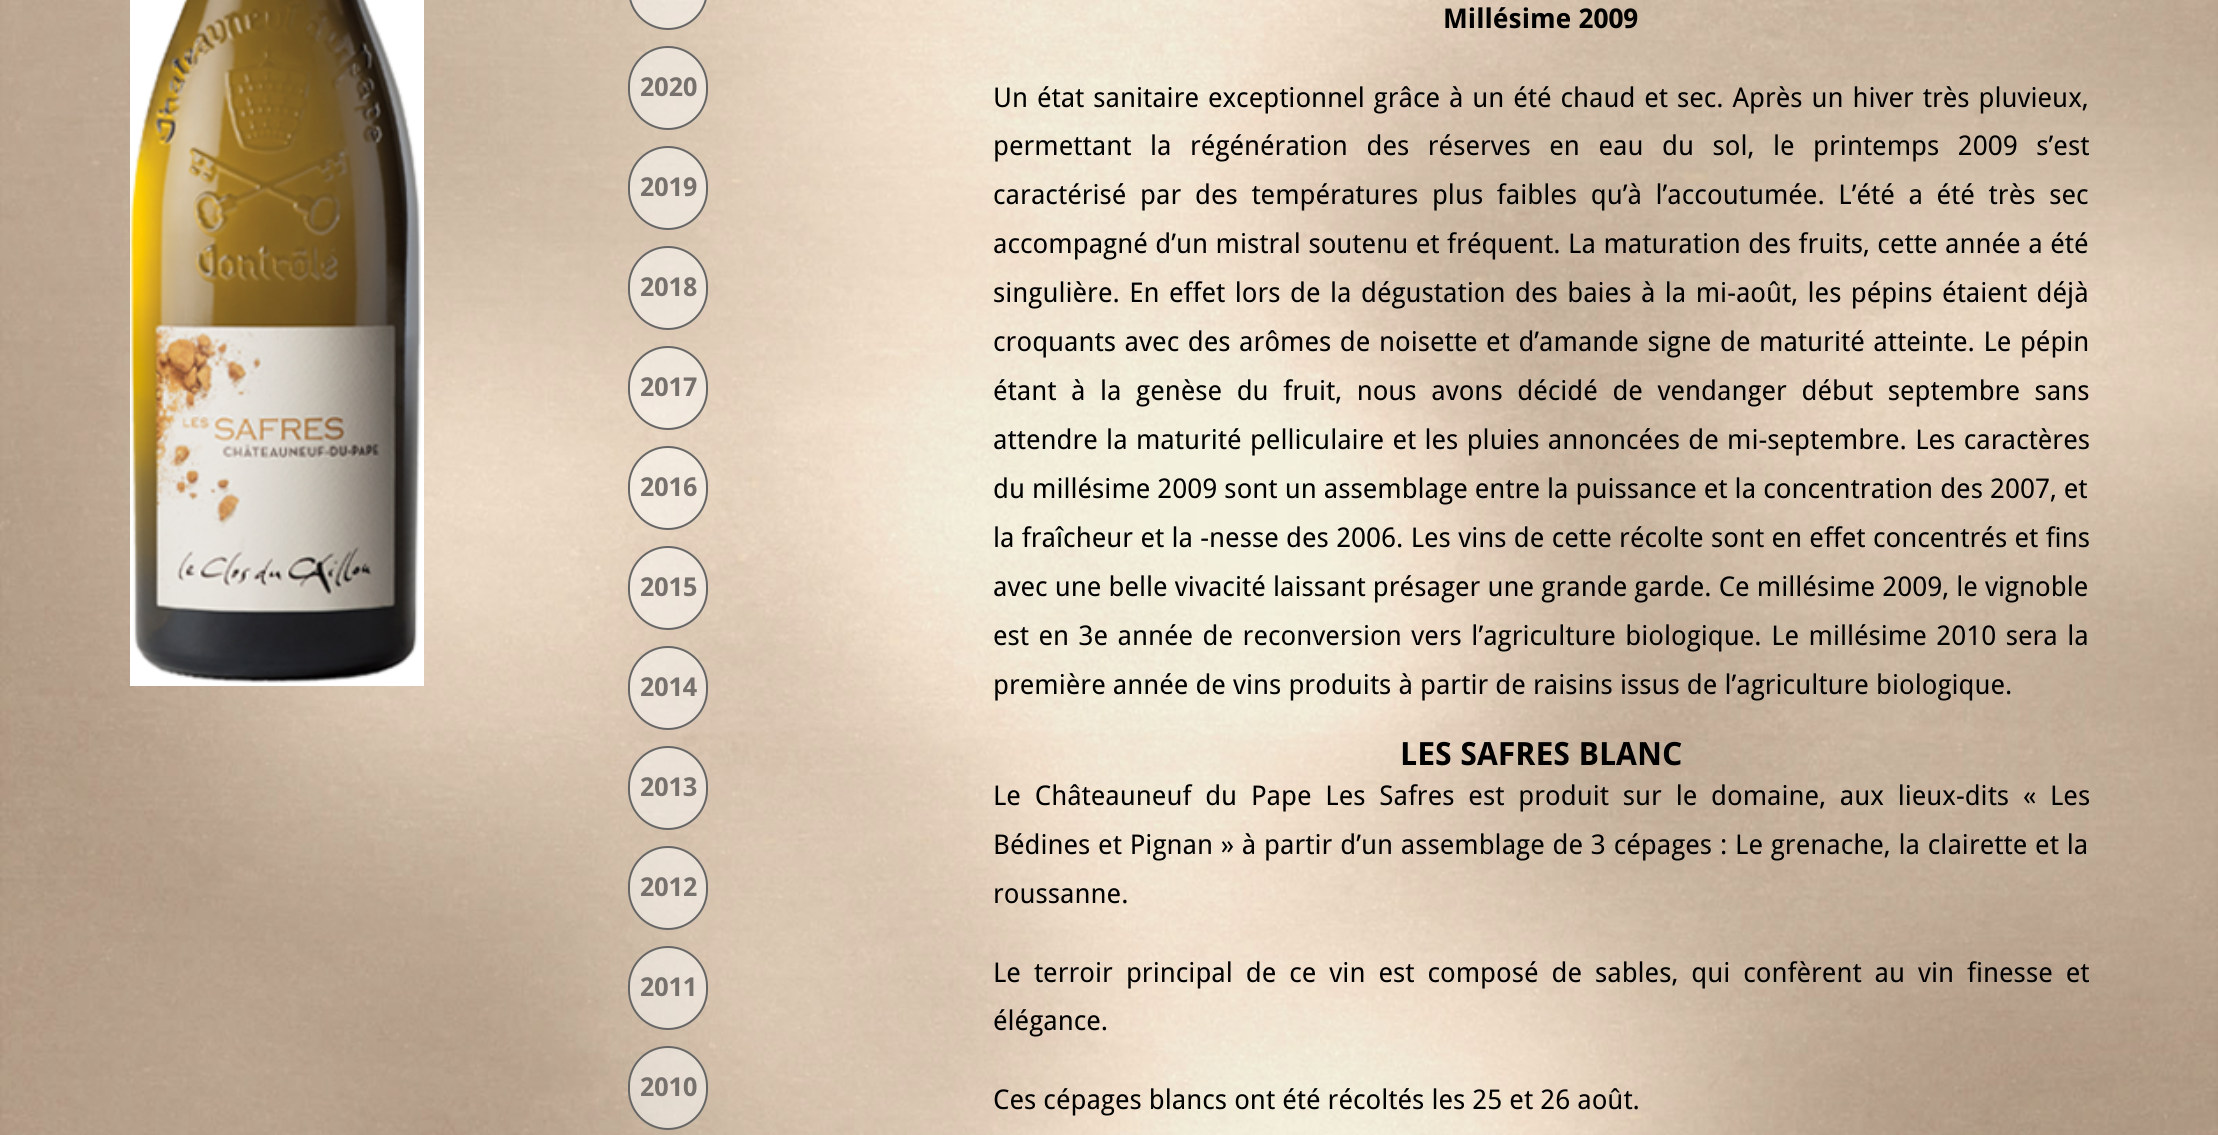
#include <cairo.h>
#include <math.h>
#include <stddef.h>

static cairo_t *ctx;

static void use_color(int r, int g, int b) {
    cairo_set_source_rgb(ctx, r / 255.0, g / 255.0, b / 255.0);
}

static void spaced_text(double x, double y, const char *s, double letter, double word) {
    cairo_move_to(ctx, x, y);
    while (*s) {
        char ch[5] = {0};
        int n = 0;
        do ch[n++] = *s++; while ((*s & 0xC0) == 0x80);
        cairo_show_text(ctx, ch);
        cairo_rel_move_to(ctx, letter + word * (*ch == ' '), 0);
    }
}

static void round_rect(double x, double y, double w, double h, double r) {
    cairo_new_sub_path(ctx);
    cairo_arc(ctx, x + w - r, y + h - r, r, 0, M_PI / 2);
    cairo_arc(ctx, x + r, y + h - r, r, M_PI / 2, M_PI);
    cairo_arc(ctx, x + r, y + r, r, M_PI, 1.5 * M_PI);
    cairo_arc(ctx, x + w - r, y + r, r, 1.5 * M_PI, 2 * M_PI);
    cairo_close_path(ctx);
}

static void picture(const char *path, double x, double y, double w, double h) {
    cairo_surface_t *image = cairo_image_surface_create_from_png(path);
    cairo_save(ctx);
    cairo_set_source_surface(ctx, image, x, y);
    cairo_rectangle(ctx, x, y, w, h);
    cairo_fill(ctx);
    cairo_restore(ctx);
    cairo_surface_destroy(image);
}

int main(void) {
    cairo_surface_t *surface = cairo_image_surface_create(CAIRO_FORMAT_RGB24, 2218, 1135);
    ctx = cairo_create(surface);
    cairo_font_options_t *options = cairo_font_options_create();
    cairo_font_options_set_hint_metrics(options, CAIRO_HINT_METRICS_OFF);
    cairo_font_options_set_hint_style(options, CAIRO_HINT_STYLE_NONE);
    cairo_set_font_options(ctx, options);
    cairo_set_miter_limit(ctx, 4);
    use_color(255, 255, 255);
    cairo_paint(ctx);
    picture("img1.png", 0, 0, 2218, 1135);
    picture("img2.png", 130, 0, 294, 686);
    cairo_set_source_rgba(ctx, 1, 1, 1, 0.5);
    round_rect(629, -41, 78, 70, 39);
    cairo_fill_preserve(ctx);
    use_color(102, 102, 102);
    cairo_stroke(ctx);
    cairo_set_source_rgba(ctx, 1, 1, 1, 0.5);
    round_rect(629, 47, 78, 82, 39);
    cairo_fill_preserve(ctx);
    use_color(102, 102, 102);
    cairo_stroke(ctx);
    cairo_select_font_face(ctx, "Droid Sans", CAIRO_FONT_SLANT_NORMAL, CAIRO_FONT_WEIGHT_BOLD);
    cairo_set_font_size(ctx, 26);
    use_color(118, 113, 108);
    cairo_move_to(ctx, 640, 96);
    cairo_show_text(ctx, "2020");
    cairo_set_source_rgba(ctx, 1, 1, 1, 0.5);
    round_rect(629, 147, 78, 82, 39);
    cairo_fill_preserve(ctx);
    use_color(102, 102, 102);
    cairo_stroke(ctx);
    use_color(118, 113, 108);
    cairo_move_to(ctx, 640, 196);
    cairo_show_text(ctx, "2019");
    cairo_set_source_rgba(ctx, 1, 1, 1, 0.5);
    round_rect(629, 247, 78, 82, 39);
    cairo_fill_preserve(ctx);
    use_color(102, 102, 102);
    cairo_stroke(ctx);
    use_color(118, 113, 108);
    cairo_move_to(ctx, 640, 296);
    cairo_show_text(ctx, "2018");
    cairo_set_source_rgba(ctx, 1, 1, 1, 0.5);
    round_rect(629, 347, 78, 82, 39);
    cairo_fill_preserve(ctx);
    use_color(102, 102, 102);
    cairo_stroke(ctx);
    use_color(118, 113, 108);
    cairo_move_to(ctx, 640, 396);
    cairo_show_text(ctx, "2017");
    cairo_set_source_rgba(ctx, 1, 1, 1, 0.5);
    round_rect(629, 447, 78, 82, 39);
    cairo_fill_preserve(ctx);
    use_color(102, 102, 102);
    cairo_stroke(ctx);
    use_color(118, 113, 108);
    cairo_move_to(ctx, 640, 496);
    cairo_show_text(ctx, "2016");
    cairo_set_source_rgba(ctx, 1, 1, 1, 0.5);
    round_rect(629, 547, 78, 82, 39);
    cairo_fill_preserve(ctx);
    use_color(102, 102, 102);
    cairo_stroke(ctx);
    use_color(118, 113, 108);
    cairo_move_to(ctx, 640, 596);
    cairo_show_text(ctx, "2015");
    cairo_set_source_rgba(ctx, 1, 1, 1, 0.5);
    round_rect(629, 647, 78, 82, 39);
    cairo_fill_preserve(ctx);
    use_color(102, 102, 102);
    cairo_stroke(ctx);
    use_color(118, 113, 108);
    cairo_move_to(ctx, 640, 696);
    cairo_show_text(ctx, "2014");
    cairo_set_source_rgba(ctx, 1, 1, 1, 0.5);
    round_rect(629, 747, 78, 82, 39);
    cairo_fill_preserve(ctx);
    use_color(102, 102, 102);
    cairo_stroke(ctx);
    use_color(118, 113, 108);
    cairo_move_to(ctx, 640, 796);
    cairo_show_text(ctx, "2013");
    cairo_set_source_rgba(ctx, 1, 1, 1, 0.5);
    round_rect(629, 847, 78, 82, 39);
    cairo_fill_preserve(ctx);
    use_color(102, 102, 102);
    cairo_stroke(ctx);
    use_color(118, 113, 108);
    cairo_move_to(ctx, 640, 896);
    cairo_show_text(ctx, "2012");
    cairo_set_source_rgba(ctx, 1, 1, 1, 0.5);
    round_rect(629, 947, 78, 82, 39);
    cairo_fill_preserve(ctx);
    use_color(102, 102, 102);
    cairo_stroke(ctx);
    use_color(118, 113, 108);
    cairo_move_to(ctx, 640, 996);
    cairo_show_text(ctx, "2011");
    cairo_set_source_rgba(ctx, 1, 1, 1, 0.5);
    round_rect(629, 1047, 78, 82, 39);
    cairo_fill_preserve(ctx);
    use_color(102, 102, 102);
    cairo_stroke(ctx);
    use_color(118, 113, 108);
    cairo_move_to(ctx, 640, 1096);
    cairo_show_text(ctx, "2010");
    cairo_set_font_size(ctx, 27.2);
    use_color(0, 0, 0);
    cairo_move_to(ctx, 1443, 28);
    cairo_show_text(ctx, "Millésime 2009");
    cairo_select_font_face(ctx, "Droid Sans", CAIRO_FONT_SLANT_NORMAL, CAIRO_FONT_WEIGHT_NORMAL);
    spaced_text(993, 107, "Un état sanitaire exceptionnel grâce à un été chaud et sec. Après un hiver très pluvieux,", 0, 1.8);
    spaced_text(993, 155, "permettant la régénération des réserves en eau du sol, le printemps 2009 s’est", 0, 11.5);
    spaced_text(993, 204, "caractérisé par des températures plus faibles qu’à l’accoutumée. L’été a été très sec", 0, 6.6);
    spaced_text(993, 253, "accompagné d’un mistral soutenu et fréquent. La maturation des fruits, cette année a été", 0, 0.5);
    spaced_text(993, 302, "singulière. En effet lors de la dégustation des baies à la mi-août, les pépins étaient déjà", 0, 2.4);
    spaced_text(993, 351, "croquants avec des arômes de noisette et d’amande signe de maturité atteinte. Le pépin", 0, 1.5);
    spaced_text(993, 400, "étant à la genèse du fruit, nous avons décidé de vendanger début septembre sans", 0, 7.5);
    spaced_text(993, 449, "attendre la maturité pelliculaire et les pluies annoncées de mi-septembre. Les caractères", 0, 1.25);
    cairo_move_to(ctx, 993, 498);
    cairo_show_text(ctx, "du millésime 2009 sont un assemblage entre la puissance et la concentration des 2007, et");
    spaced_text(993, 547, "la fraîcheur et la -nesse des 2006. Les vins de cette récolte sont en effet concentrés et fins", 0, 0.25);
    spaced_text(993, 596, "avec une belle vivacité laissant présager une grande garde. Ce millésime 2009, le vignoble", 0, 0.1);
    spaced_text(993, 645, "est en 3e année de reconversion vers l’agriculture biologique. Le millésime 2010 sera la", 0, 2.4);
    cairo_move_to(ctx, 993, 694);
    cairo_show_text(ctx, "première année de vins produits à partir de raisins issus de l’agriculture biologique.");
    cairo_select_font_face(ctx, "Droid Sans", CAIRO_FONT_SLANT_NORMAL, CAIRO_FONT_WEIGHT_BOLD);
    cairo_set_font_size(ctx, 32);
    cairo_move_to(ctx, 1400, 765);
    cairo_show_text(ctx, "LES SAFRES BLANC");
    cairo_select_font_face(ctx, "Droid Sans", CAIRO_FONT_SLANT_NORMAL, CAIRO_FONT_WEIGHT_NORMAL);
    cairo_set_font_size(ctx, 27.2);
    spaced_text(993, 805, "Le Châteauneuf du Pape Les Safres est produit sur le domaine, aux lieux-dits « Les", 0, 6.75);
    spaced_text(993, 854, "Bédines et Pignan » à partir d’un assemblage de 3 cépages : Le grenache, la clairette et la", 0, 0.75);
    cairo_move_to(ctx, 993, 903);
    cairo_show_text(ctx, "roussanne.");
    spaced_text(993, 982, "Le terroir principal de ce vin est composé de sables, qui confèrent au vin finesse et", 0, 5.9);
    cairo_move_to(ctx, 993, 1030);
    cairo_show_text(ctx, "élégance.");
    cairo_move_to(ctx, 993, 1109);
    cairo_show_text(ctx, "Ces cépages blancs ont été récoltés les 25 et 26 août.");
    cairo_surface_write_to_png(surface, "result.png");
    cairo_font_options_destroy(options);
    cairo_destroy(ctx);
    cairo_surface_destroy(surface);
    return 0;
}
